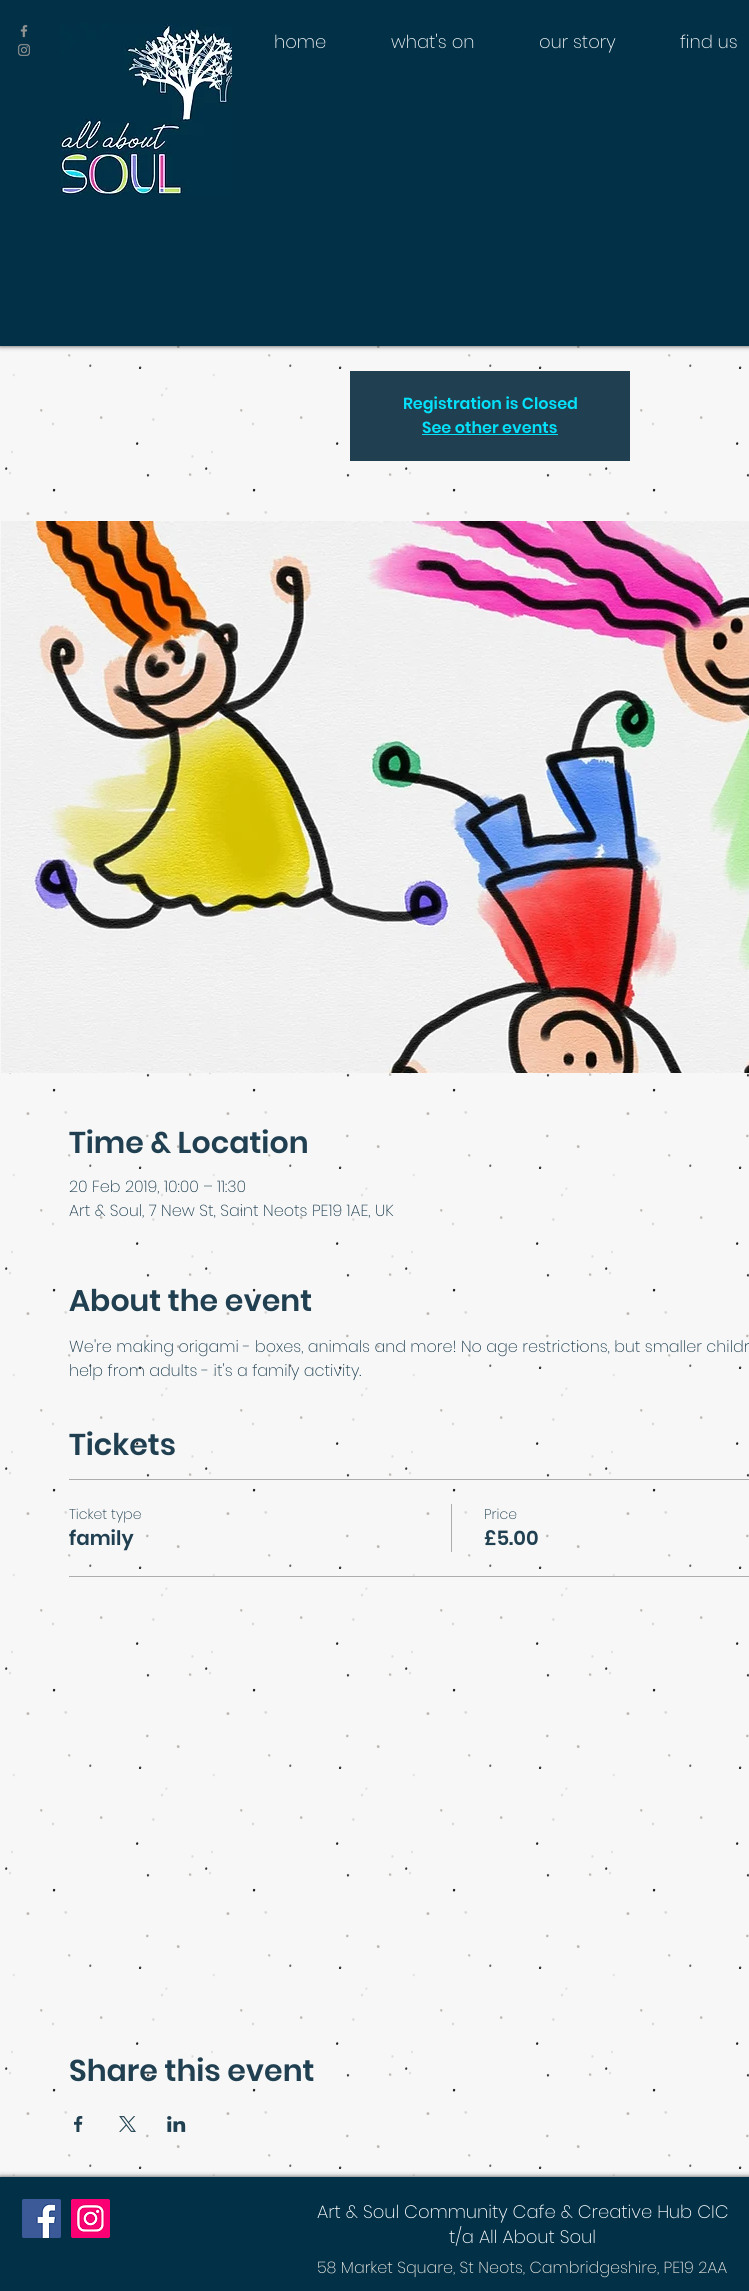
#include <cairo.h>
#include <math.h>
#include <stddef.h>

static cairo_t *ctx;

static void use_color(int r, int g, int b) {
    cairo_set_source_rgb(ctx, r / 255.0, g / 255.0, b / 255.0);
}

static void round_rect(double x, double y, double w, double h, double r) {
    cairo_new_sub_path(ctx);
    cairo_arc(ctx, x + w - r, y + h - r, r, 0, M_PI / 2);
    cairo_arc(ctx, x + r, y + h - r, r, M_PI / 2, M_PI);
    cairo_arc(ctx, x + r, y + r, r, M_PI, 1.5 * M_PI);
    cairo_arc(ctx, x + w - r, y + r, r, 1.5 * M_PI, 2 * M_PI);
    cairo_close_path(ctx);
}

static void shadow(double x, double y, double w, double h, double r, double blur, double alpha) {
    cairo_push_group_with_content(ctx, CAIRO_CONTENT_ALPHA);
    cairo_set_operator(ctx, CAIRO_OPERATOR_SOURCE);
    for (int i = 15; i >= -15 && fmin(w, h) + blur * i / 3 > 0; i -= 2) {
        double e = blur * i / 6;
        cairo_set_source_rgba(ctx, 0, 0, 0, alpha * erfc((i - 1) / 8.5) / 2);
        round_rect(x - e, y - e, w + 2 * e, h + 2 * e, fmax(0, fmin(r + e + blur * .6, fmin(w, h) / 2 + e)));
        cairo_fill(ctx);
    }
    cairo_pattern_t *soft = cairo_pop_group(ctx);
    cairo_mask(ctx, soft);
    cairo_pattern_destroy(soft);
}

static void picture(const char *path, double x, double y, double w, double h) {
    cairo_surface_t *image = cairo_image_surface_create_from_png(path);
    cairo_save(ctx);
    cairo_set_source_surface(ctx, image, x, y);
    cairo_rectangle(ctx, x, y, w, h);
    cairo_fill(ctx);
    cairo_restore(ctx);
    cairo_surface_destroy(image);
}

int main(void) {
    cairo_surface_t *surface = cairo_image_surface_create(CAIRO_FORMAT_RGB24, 749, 2291);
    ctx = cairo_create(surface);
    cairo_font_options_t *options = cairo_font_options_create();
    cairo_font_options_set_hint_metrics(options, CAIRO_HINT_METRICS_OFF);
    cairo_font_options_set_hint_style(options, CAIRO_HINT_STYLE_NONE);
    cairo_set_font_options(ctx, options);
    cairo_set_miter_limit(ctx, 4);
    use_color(247, 247, 247);
    cairo_paint(ctx);
    picture("img10.png", 5, 346, 744, 1831);
    use_color(0, 0, 0);
    shadow(0, 0, 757, 346, 0, 2.5, 0.7);
    use_color(1, 48, 71);
    cairo_rectangle(ctx, 0, 0, 749, 346);
    cairo_fill(ctx);
    picture("img1.png", 20, 24, 8, 14);
    picture("img2.png", 17, 43, 13, 13);
    picture("img3.png", 60, 23, 172, 172);
    cairo_select_font_face(ctx, "Poppins ExtraLight", CAIRO_FONT_SLANT_NORMAL, CAIRO_FONT_WEIGHT_NORMAL);
    cairo_set_font_size(ctx, 18);
    use_color(246, 247, 248);
    cairo_move_to(ctx, 274, 48);
    cairo_show_text(ctx, "home");
    cairo_move_to(ctx, 391, 48);
    cairo_show_text(ctx, "what's on");
    cairo_move_to(ctx, 539, 48);
    cairo_show_text(ctx, "our story");
    cairo_move_to(ctx, 680, 48);
    cairo_show_text(ctx, "find us");
    use_color(32, 64, 81);
    cairo_rectangle(ctx, 350, 371, 280, 90);
    cairo_fill(ctx);
    cairo_select_font_face(ctx, "Poppins SemiBold", CAIRO_FONT_SLANT_NORMAL, CAIRO_FONT_WEIGHT_NORMAL);
    cairo_set_font_size(ctx, 16);
    use_color(5, 225, 250);
    cairo_move_to(ctx, 403, 409);
    cairo_show_text(ctx, "Registration is Closed");
    cairo_move_to(ctx, 422, 433);
    cairo_show_text(ctx, "See other events");
    cairo_rectangle(ctx, 422, 434, 136, 1);
    cairo_fill(ctx);
    picture("img4.png", 1, 521, 748, 552);
    cairo_set_font_size(ctx, 30);
    use_color(32, 64, 81);
    cairo_move_to(ctx, 69, 1153);
    cairo_show_text(ctx, "Time & Location");
    cairo_select_font_face(ctx, "Poppins ExtraLight", CAIRO_FONT_SLANT_NORMAL, CAIRO_FONT_WEIGHT_NORMAL);
    cairo_set_font_size(ctx, 16);
    cairo_move_to(ctx, 69, 1192);
    cairo_show_text(ctx, "20 Feb 2019, 10:00 – 11:30");
    cairo_move_to(ctx, 69, 1216);
    cairo_show_text(ctx, "Art & Soul, 7 New St, Saint Neots PE19 1AE, UK");
    cairo_select_font_face(ctx, "Poppins SemiBold", CAIRO_FONT_SLANT_NORMAL, CAIRO_FONT_WEIGHT_NORMAL);
    cairo_set_font_size(ctx, 30);
    cairo_move_to(ctx, 69, 1311);
    cairo_show_text(ctx, "About the event");
    cairo_select_font_face(ctx, "Poppins ExtraLight", CAIRO_FONT_SLANT_NORMAL, CAIRO_FONT_WEIGHT_NORMAL);
    cairo_set_font_size(ctx, 16);
    cairo_move_to(ctx, 69, 1352);
    cairo_show_text(ctx, "We're making origami - boxes, animals and more! No age restrictions, but smaller childr");
    cairo_move_to(ctx, 69, 1376);
    cairo_show_text(ctx, "help from adults - it's a family activity.");
    cairo_select_font_face(ctx, "Poppins SemiBold", CAIRO_FONT_SLANT_NORMAL, CAIRO_FONT_WEIGHT_NORMAL);
    cairo_set_font_size(ctx, 30);
    cairo_move_to(ctx, 69, 1455);
    cairo_show_text(ctx, "Tickets");
    use_color(173, 173, 173);
    cairo_rectangle(ctx, 69, 1479, 680, 1);
    cairo_fill(ctx);
    cairo_set_source_rgba(ctx, 0, 0, 0, 0.3);
    cairo_rectangle(ctx, 69, 1576, 680, 1);
    cairo_fill(ctx);
    cairo_select_font_face(ctx, "Poppins ExtraLight", CAIRO_FONT_SLANT_NORMAL, CAIRO_FONT_WEIGHT_NORMAL);
    cairo_set_font_size(ctx, 14);
    use_color(32, 64, 81);
    cairo_move_to(ctx, 69, 1519);
    cairo_show_text(ctx, "Ticket type");
    cairo_select_font_face(ctx, "Poppins SemiBold", CAIRO_FONT_SLANT_NORMAL, CAIRO_FONT_WEIGHT_NORMAL);
    cairo_set_font_size(ctx, 20);
    cairo_move_to(ctx, 69, 1545);
    cairo_show_text(ctx, "family");
    use_color(173, 173, 173);
    cairo_rectangle(ctx, 451, 1504, 1, 48);
    cairo_fill(ctx);
    cairo_select_font_face(ctx, "Poppins ExtraLight", CAIRO_FONT_SLANT_NORMAL, CAIRO_FONT_WEIGHT_NORMAL);
    cairo_set_font_size(ctx, 14);
    use_color(32, 64, 81);
    cairo_move_to(ctx, 484, 1519);
    cairo_show_text(ctx, "Price");
    cairo_select_font_face(ctx, "Poppins SemiBold", CAIRO_FONT_SLANT_NORMAL, CAIRO_FONT_WEIGHT_NORMAL);
    cairo_set_font_size(ctx, 20);
    cairo_move_to(ctx, 484, 1545);
    cairo_show_text(ctx, "£5.00");
    cairo_set_font_size(ctx, 30);
    cairo_move_to(ctx, 69, 2081);
    cairo_show_text(ctx, "Share this event");
    picture("img5.png", 74, 2116, 9, 16);
    picture("img6.png", 119, 2116, 17, 16);
    picture("img7.png", 167, 2116, 19, 16);
    use_color(0, 0, 0);
    shadow(0, 2177, 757, 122, 0, 2.5, 0.7);
    use_color(1, 48, 71);
    cairo_rectangle(ctx, 0, 2177, 749, 114);
    cairo_fill(ctx);
    picture("img8.png", 22, 2199, 39, 39);
    picture("img9.png", 71, 2199, 39, 39);
    cairo_select_font_face(ctx, "Poppins ExtraLight", CAIRO_FONT_SLANT_NORMAL, CAIRO_FONT_WEIGHT_NORMAL);
    cairo_set_font_size(ctx, 18);
    use_color(255, 255, 255);
    cairo_move_to(ctx, 317, 2218);
    cairo_show_text(ctx, "Art & Soul Community Cafe & Creative Hub CIC");
    cairo_move_to(ctx, 449, 2243);
    cairo_show_text(ctx, "t/a All About Soul");
    cairo_set_font_size(ctx, 16);
    use_color(237, 233, 225);
    cairo_move_to(ctx, 317, 2273);
    cairo_show_text(ctx, "58 Market Square, St Neots, Cambridgeshire, PE19 2AA");
    cairo_surface_write_to_png(surface, "result.png");
    cairo_font_options_destroy(options);
    cairo_destroy(ctx);
    cairo_surface_destroy(surface);
    return 0;
}
